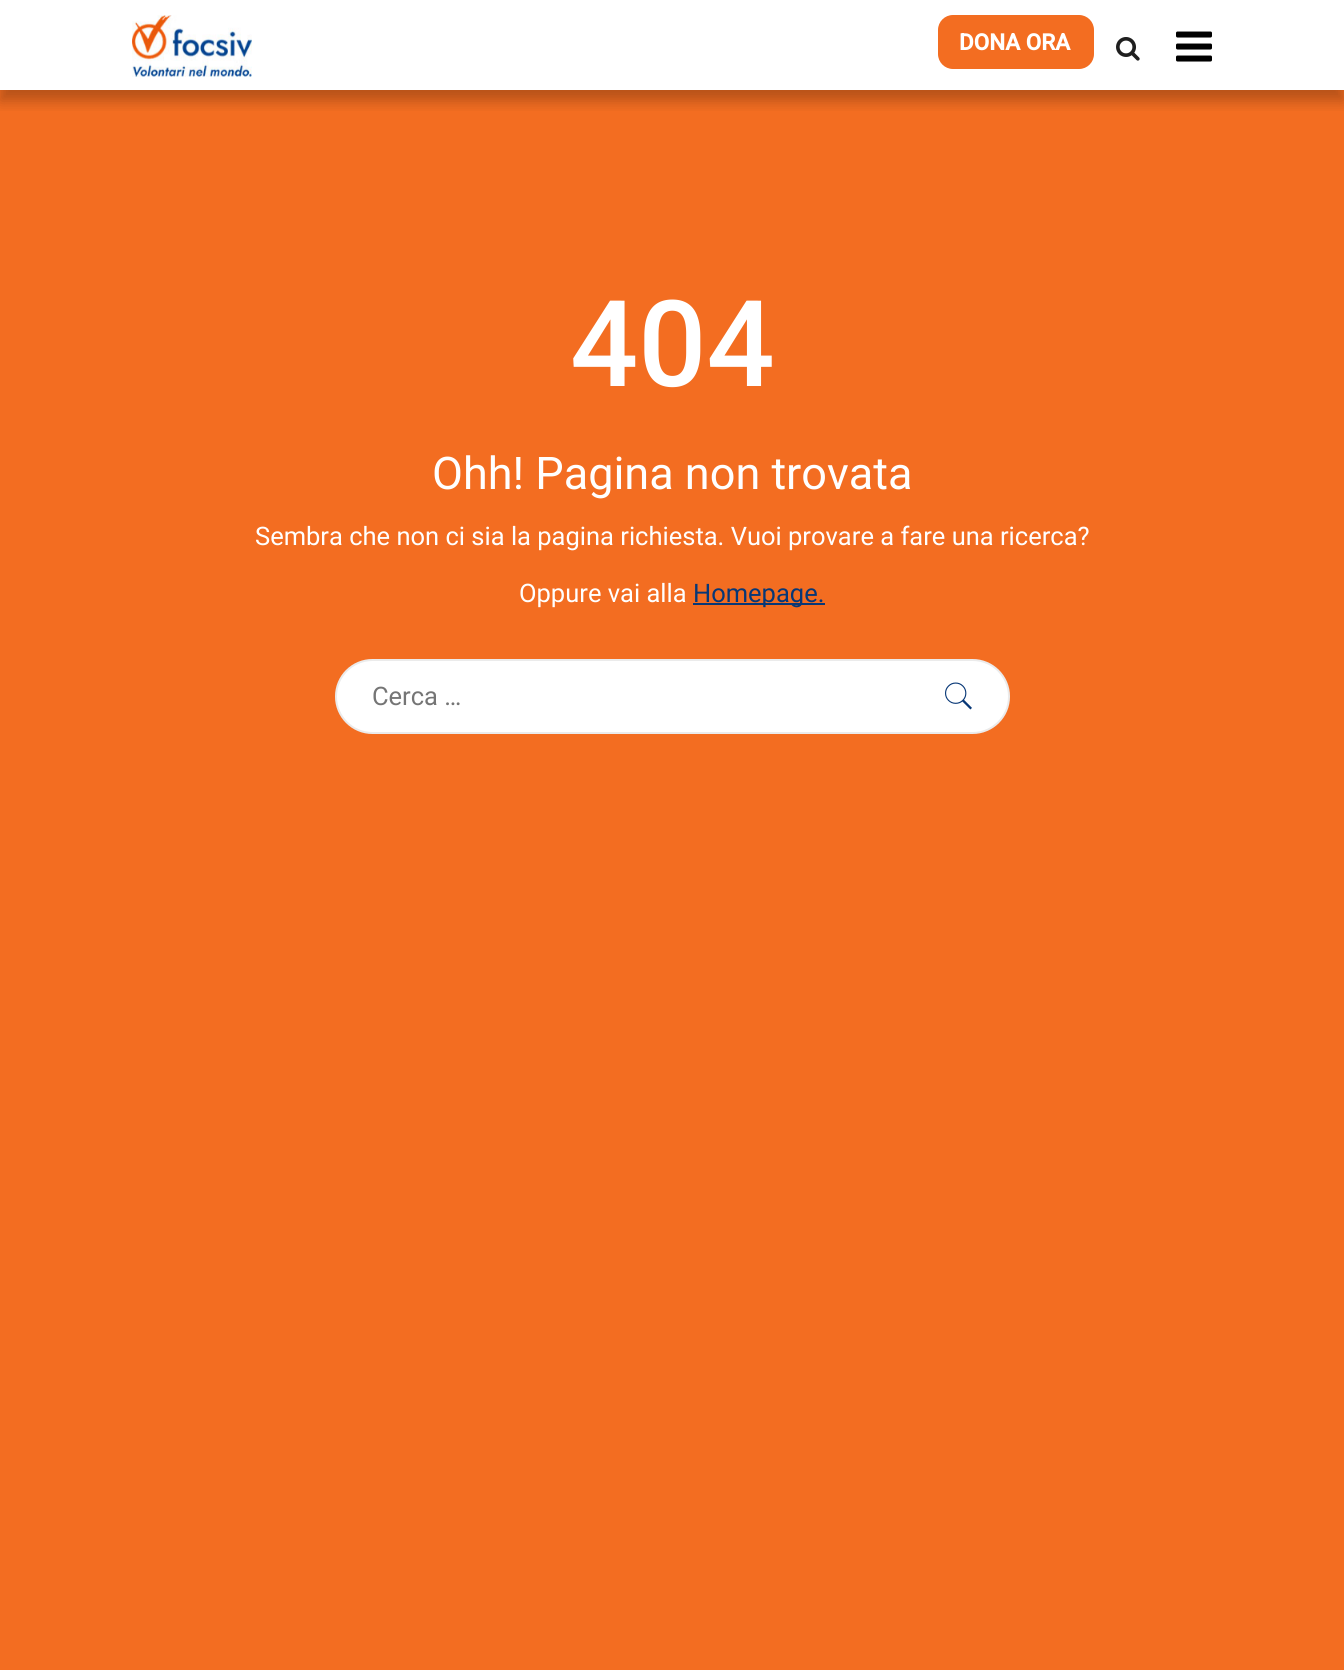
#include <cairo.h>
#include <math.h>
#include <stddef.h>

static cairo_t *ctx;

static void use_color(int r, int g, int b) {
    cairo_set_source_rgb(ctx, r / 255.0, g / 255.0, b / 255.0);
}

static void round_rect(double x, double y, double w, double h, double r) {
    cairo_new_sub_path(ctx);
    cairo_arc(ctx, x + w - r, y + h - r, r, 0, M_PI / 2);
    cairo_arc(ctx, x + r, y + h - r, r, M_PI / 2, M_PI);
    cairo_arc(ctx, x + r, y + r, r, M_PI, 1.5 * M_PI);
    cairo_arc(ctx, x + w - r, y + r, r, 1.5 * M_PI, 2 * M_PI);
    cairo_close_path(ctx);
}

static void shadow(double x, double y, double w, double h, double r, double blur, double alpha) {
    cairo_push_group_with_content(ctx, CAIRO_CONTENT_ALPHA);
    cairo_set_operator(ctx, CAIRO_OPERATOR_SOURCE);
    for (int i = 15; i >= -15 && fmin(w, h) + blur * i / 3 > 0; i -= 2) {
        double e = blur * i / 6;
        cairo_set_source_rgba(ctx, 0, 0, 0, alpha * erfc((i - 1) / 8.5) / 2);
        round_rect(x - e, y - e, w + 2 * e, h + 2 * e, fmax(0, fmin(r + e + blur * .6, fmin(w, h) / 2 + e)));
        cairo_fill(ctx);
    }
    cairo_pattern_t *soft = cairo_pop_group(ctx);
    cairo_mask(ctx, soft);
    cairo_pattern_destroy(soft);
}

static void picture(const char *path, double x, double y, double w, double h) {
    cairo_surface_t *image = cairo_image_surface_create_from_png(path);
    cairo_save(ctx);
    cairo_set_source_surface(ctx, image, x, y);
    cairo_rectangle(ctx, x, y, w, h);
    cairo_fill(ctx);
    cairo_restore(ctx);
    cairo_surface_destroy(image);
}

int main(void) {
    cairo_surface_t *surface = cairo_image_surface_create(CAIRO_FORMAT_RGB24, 1344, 1670);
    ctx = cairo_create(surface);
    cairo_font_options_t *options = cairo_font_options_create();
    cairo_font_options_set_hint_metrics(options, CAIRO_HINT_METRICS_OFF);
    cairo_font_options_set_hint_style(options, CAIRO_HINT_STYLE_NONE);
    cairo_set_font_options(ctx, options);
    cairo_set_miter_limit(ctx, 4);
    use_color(243, 109, 33);
    cairo_paint(ctx);
    use_color(255, 255, 255);
    cairo_rectangle(ctx, 0, 0, 1344, 90);
    cairo_fill(ctx);
    cairo_save(ctx);
    cairo_rectangle(ctx, 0, 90, 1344, 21);
    cairo_clip(ctx);
    use_color(0, 0, 0);
    shadow(0, 26, 1344, 75, 0, 7, 0.25);
    cairo_restore(ctx);
    picture("img1.png", 132, 15, 120, 62);
    use_color(243, 109, 33);
    round_rect(938, 15, 156, 54, 15);
    cairo_fill(ctx);
    cairo_select_font_face(ctx, "Roboto", CAIRO_FONT_SLANT_NORMAL, CAIRO_FONT_WEIGHT_BOLD);
    cairo_set_font_size(ctx, 22.5);
    use_color(255, 255, 255);
    cairo_move_to(ctx, 959, 50);
    cairo_show_text(ctx, "DONA ORA");
    picture("img2.png", 1116, 37, 24, 24);
    picture("img3.png", 1176, 31, 36, 31);
    cairo_select_font_face(ctx, "Roboto Medium", CAIRO_FONT_SLANT_NORMAL, CAIRO_FONT_WEIGHT_NORMAL);
    cairo_set_font_size(ctx, 120);
    cairo_move_to(ctx, 570, 386);
    cairo_show_text(ctx, "404");
    cairo_select_font_face(ctx, "Roboto", CAIRO_FONT_SLANT_NORMAL, CAIRO_FONT_WEIGHT_NORMAL);
    cairo_set_font_size(ctx, 45);
    cairo_move_to(ctx, 432, 489);
    cairo_show_text(ctx, "Ohh! Pagina non trovata");
    cairo_set_font_size(ctx, 25.5);
    cairo_move_to(ctx, 255, 545);
    cairo_show_text(ctx, "Sembra che non ci sia la pagina richiesta. Vuoi provare a fare una ricerca?");
    cairo_move_to(ctx, 519, 602);
    cairo_show_text(ctx, "Oppure vai alla");
    use_color(7, 55, 118);
    cairo_rectangle(ctx, 693, 603, 132, 2);
    cairo_fill(ctx);
    cairo_move_to(ctx, 693, 602);
    cairo_show_text(ctx, "Homepage.");
    use_color(255, 255, 255);
    round_rect(335, 659, 675, 75, 37.5);
    cairo_fill(ctx);
    round_rect(336, 660, 673, 73, 36.5);
    cairo_set_source_rgba(ctx, 0.208, 0.208, 0.208, 0.1);
    cairo_stroke(ctx);
    use_color(117, 117, 117);
    cairo_move_to(ctx, 372, 705);
    cairo_show_text(ctx, "Cerca …");
    picture("img4.png", 945, 682, 27, 28);
    cairo_surface_write_to_png(surface, "result.png");
    cairo_font_options_destroy(options);
    cairo_destroy(ctx);
    cairo_surface_destroy(surface);
    return 0;
}
